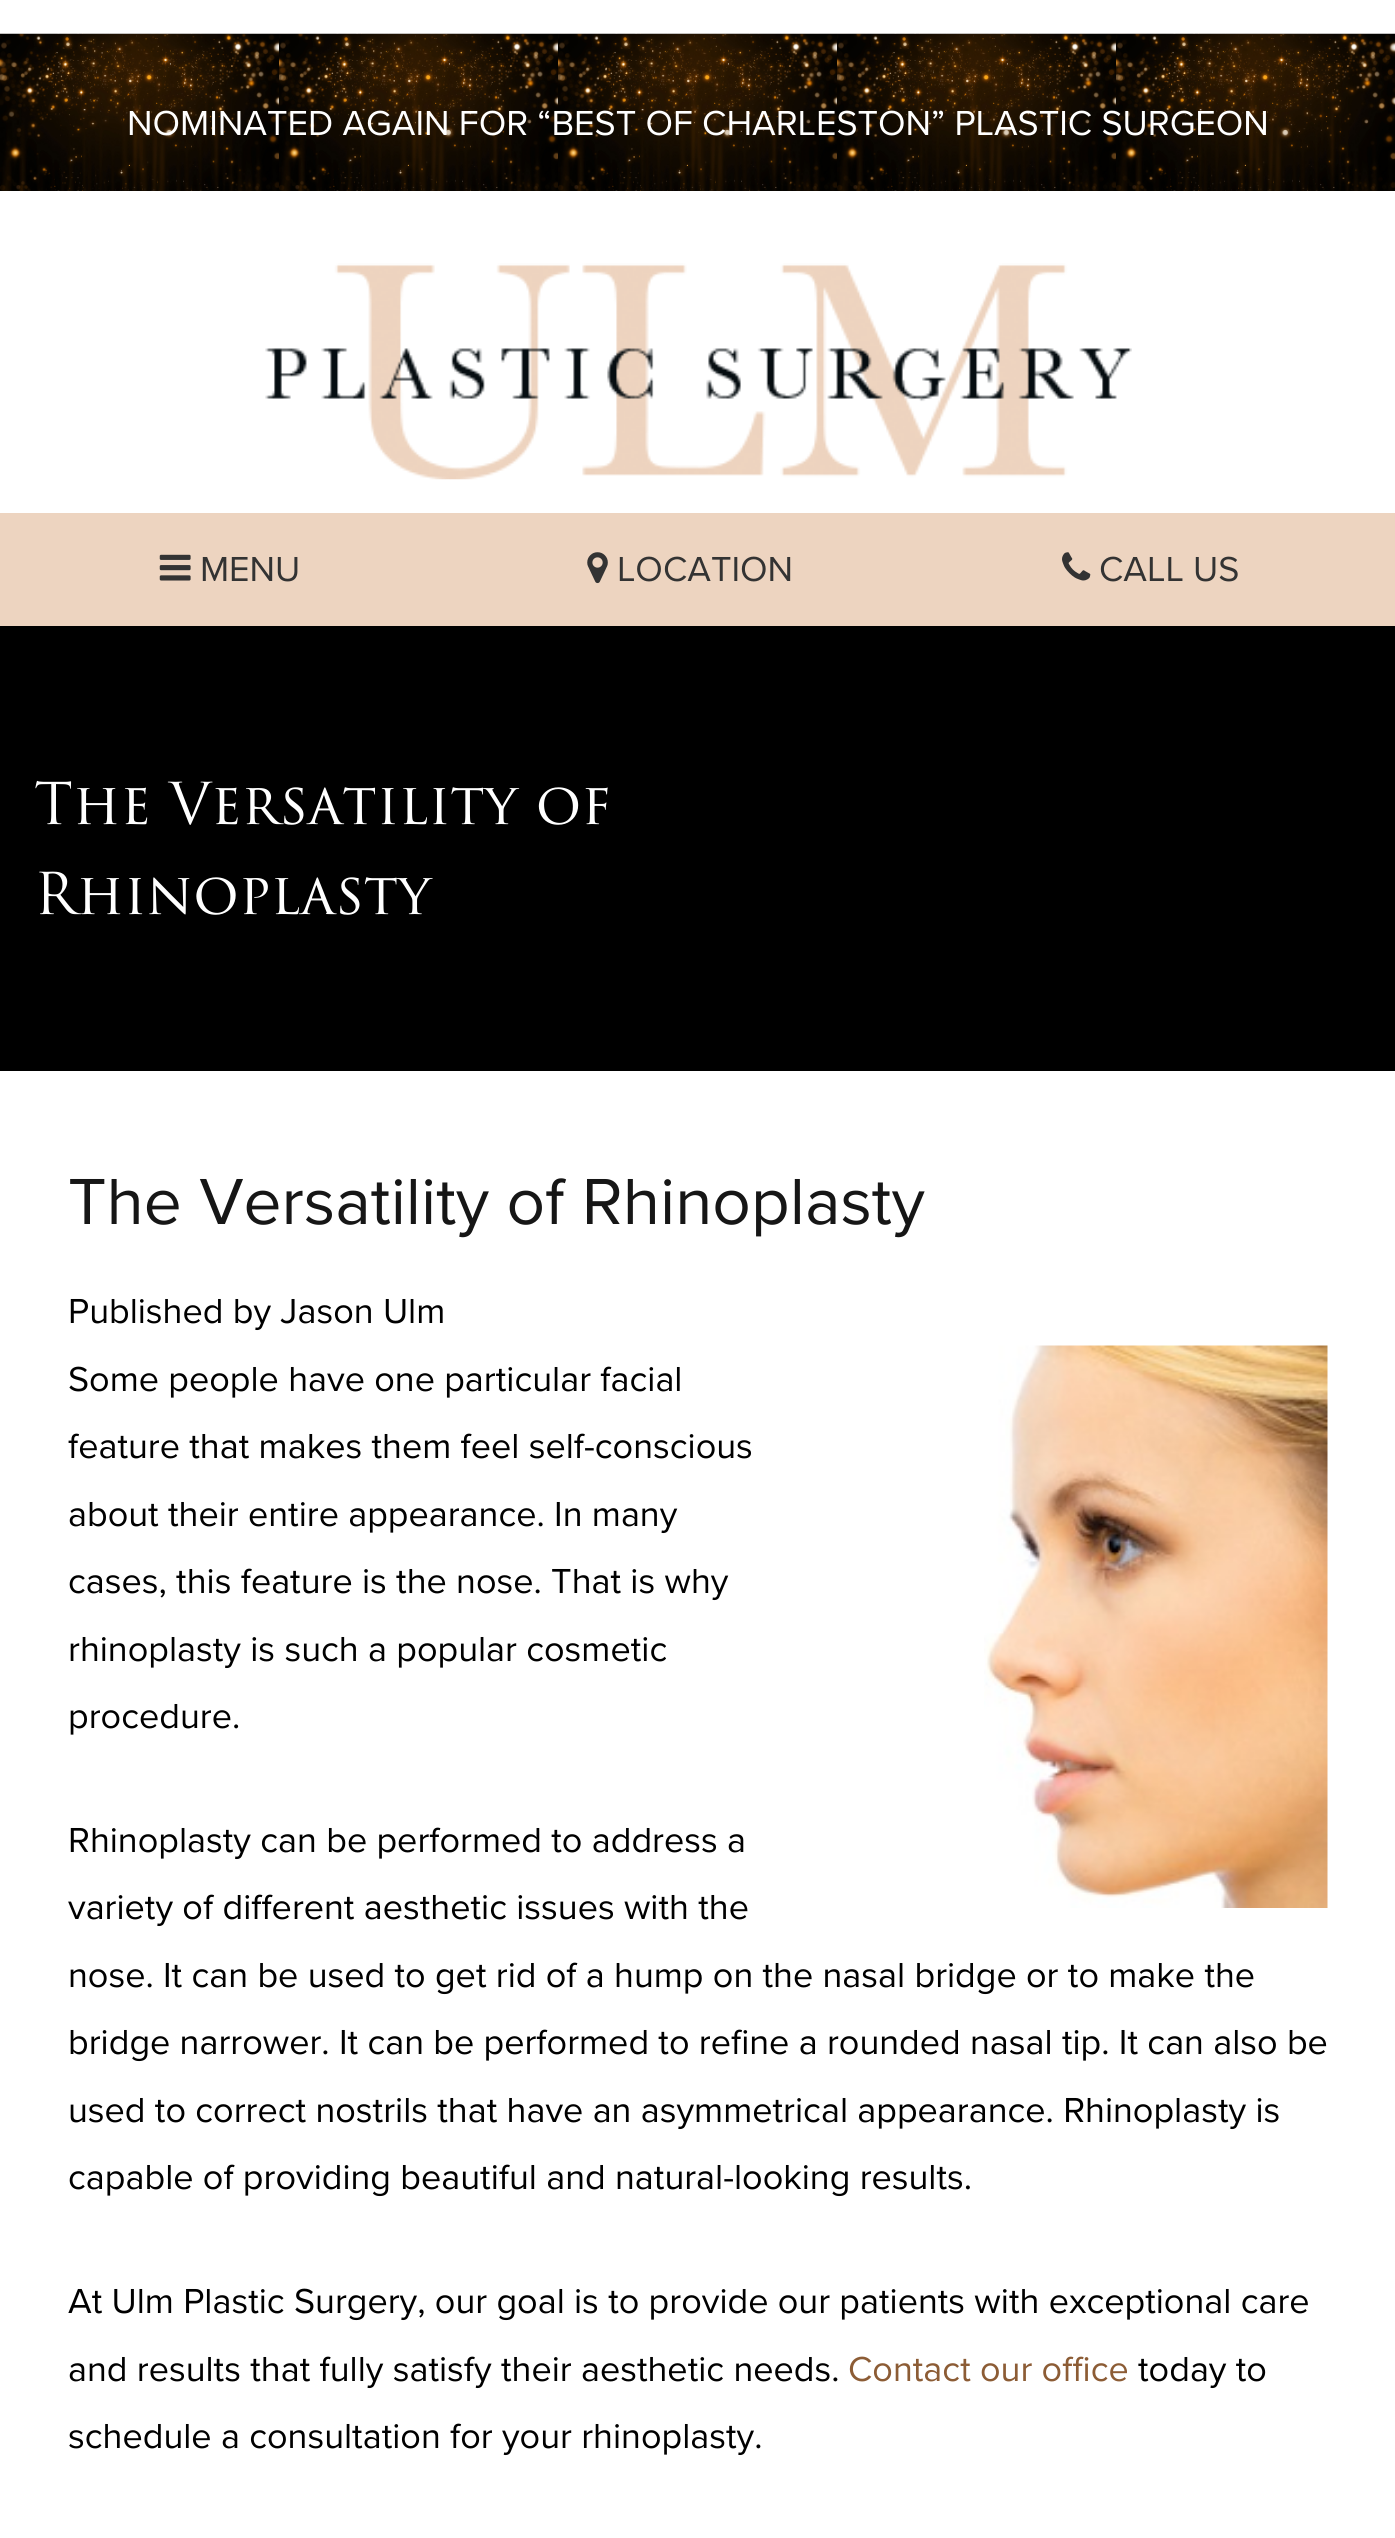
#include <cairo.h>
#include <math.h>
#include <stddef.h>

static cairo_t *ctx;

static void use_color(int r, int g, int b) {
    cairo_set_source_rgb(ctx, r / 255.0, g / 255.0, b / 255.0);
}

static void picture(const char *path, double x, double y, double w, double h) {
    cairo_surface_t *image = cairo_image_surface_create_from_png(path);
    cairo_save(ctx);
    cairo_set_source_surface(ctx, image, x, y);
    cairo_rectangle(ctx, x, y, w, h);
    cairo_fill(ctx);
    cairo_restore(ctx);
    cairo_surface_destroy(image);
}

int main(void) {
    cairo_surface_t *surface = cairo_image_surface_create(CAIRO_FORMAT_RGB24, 1395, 2538);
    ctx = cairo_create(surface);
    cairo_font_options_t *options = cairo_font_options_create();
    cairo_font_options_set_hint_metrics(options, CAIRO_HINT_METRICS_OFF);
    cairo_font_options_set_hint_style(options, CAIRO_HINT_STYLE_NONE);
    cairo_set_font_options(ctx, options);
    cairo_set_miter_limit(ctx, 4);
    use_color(255, 255, 255);
    cairo_paint(ctx);
    picture("img1.png", 0, 33, 1395, 158);
    cairo_select_font_face(ctx, "Proxima Nova", CAIRO_FONT_SLANT_NORMAL, CAIRO_FONT_WEIGHT_NORMAL);
    cairo_set_font_size(ctx, 36);
    use_color(255, 255, 255);
    cairo_move_to(ctx, 127, 135);
    cairo_show_text(ctx, "NOMINATED AGAIN FOR “BEST OF CHARLESTON” PLASTIC SURGEON");
    picture("img2.png", 265, 263, 867, 217);
    use_color(237, 212, 192);
    cairo_rectangle(ctx, 0, 513, 1395, 113);
    cairo_fill(ctx);
    picture("img3.png", 159, 554, 32, 27);
    use_color(51, 51, 51);
    cairo_move_to(ctx, 200, 581);
    cairo_show_text(ctx, "MENU");
    picture("img4.png", 587, 552, 21, 32);
    cairo_move_to(ctx, 617, 581);
    cairo_show_text(ctx, "LOCATION");
    picture("img5.png", 1062, 552, 29, 29);
    cairo_move_to(ctx, 1099, 581);
    cairo_show_text(ctx, "CALL US");
    use_color(0, 0, 0);
    cairo_rectangle(ctx, 0, 626, 1395, 445);
    cairo_fill(ctx);
    cairo_select_font_face(ctx, "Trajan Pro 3", CAIRO_FONT_SLANT_NORMAL, CAIRO_FONT_WEIGHT_NORMAL);
    cairo_set_font_size(ctx, 56.25);
    use_color(255, 255, 255);
    cairo_move_to(ctx, 34, 824);
    cairo_show_text(ctx, "The Versatility of");
    cairo_move_to(ctx, 34, 914);
    cairo_show_text(ctx, "Rhinoplasty");
    cairo_select_font_face(ctx, "Proxima Nova", CAIRO_FONT_SLANT_NORMAL, CAIRO_FONT_WEIGHT_NORMAL);
    cairo_set_font_size(ctx, 67.5);
    use_color(22, 22, 22);
    cairo_move_to(ctx, 68, 1224);
    cairo_show_text(ctx, "The Versatility of Rhinoplasty");
    cairo_set_font_size(ctx, 36);
    use_color(0, 0, 0);
    cairo_move_to(ctx, 68, 1323);
    cairo_show_text(ctx, "Published by Jason Ulm");
    picture("img6.png", 984, 1345, 344, 563);
    cairo_move_to(ctx, 68, 1391);
    cairo_show_text(ctx, "Some people have one particular facial");
    cairo_move_to(ctx, 68, 1458);
    cairo_show_text(ctx, "feature that makes them feel self-conscious");
    cairo_move_to(ctx, 68, 1526);
    cairo_show_text(ctx, "about their entire appearance. In many");
    cairo_move_to(ctx, 68, 1593);
    cairo_show_text(ctx, "cases, this feature is the nose. That is why");
    cairo_move_to(ctx, 68, 1661);
    cairo_show_text(ctx, "rhinoplasty is such a popular cosmetic");
    cairo_move_to(ctx, 68, 1728);
    cairo_show_text(ctx, "procedure.");
    cairo_move_to(ctx, 68, 1852);
    cairo_show_text(ctx, "Rhinoplasty can be performed to address a");
    cairo_move_to(ctx, 68, 1919);
    cairo_show_text(ctx, "variety of different aesthetic issues with the");
    cairo_move_to(ctx, 68, 1987);
    cairo_show_text(ctx, "nose. It can be used to get rid of a hump on the nasal bridge or to make the");
    cairo_move_to(ctx, 68, 2054);
    cairo_show_text(ctx, "bridge narrower. It can be performed to refine a rounded nasal tip. It can also be");
    cairo_move_to(ctx, 68, 2122);
    cairo_show_text(ctx, "used to correct nostrils that have an asymmetrical appearance. Rhinoplasty is");
    cairo_move_to(ctx, 68, 2189);
    cairo_show_text(ctx, "capable of providing beautiful and natural-looking results.");
    cairo_move_to(ctx, 68, 2313);
    cairo_show_text(ctx, "At Ulm Plastic Surgery, our goal is to provide our patients with exceptional care");
    cairo_move_to(ctx, 68, 2381);
    cairo_show_text(ctx, "and results that fully satisfy their aesthetic needs.");
    use_color(140, 92, 53);
    cairo_move_to(ctx, 848, 2381);
    cairo_show_text(ctx, "Contact our office");
    use_color(0, 0, 0);
    cairo_move_to(ctx, 1138, 2381);
    cairo_show_text(ctx, "today to");
    cairo_move_to(ctx, 68, 2448);
    cairo_show_text(ctx, "schedule a consultation for your rhinoplasty.");
    cairo_surface_write_to_png(surface, "result.png");
    cairo_font_options_destroy(options);
    cairo_destroy(ctx);
    cairo_surface_destroy(surface);
    return 0;
}
